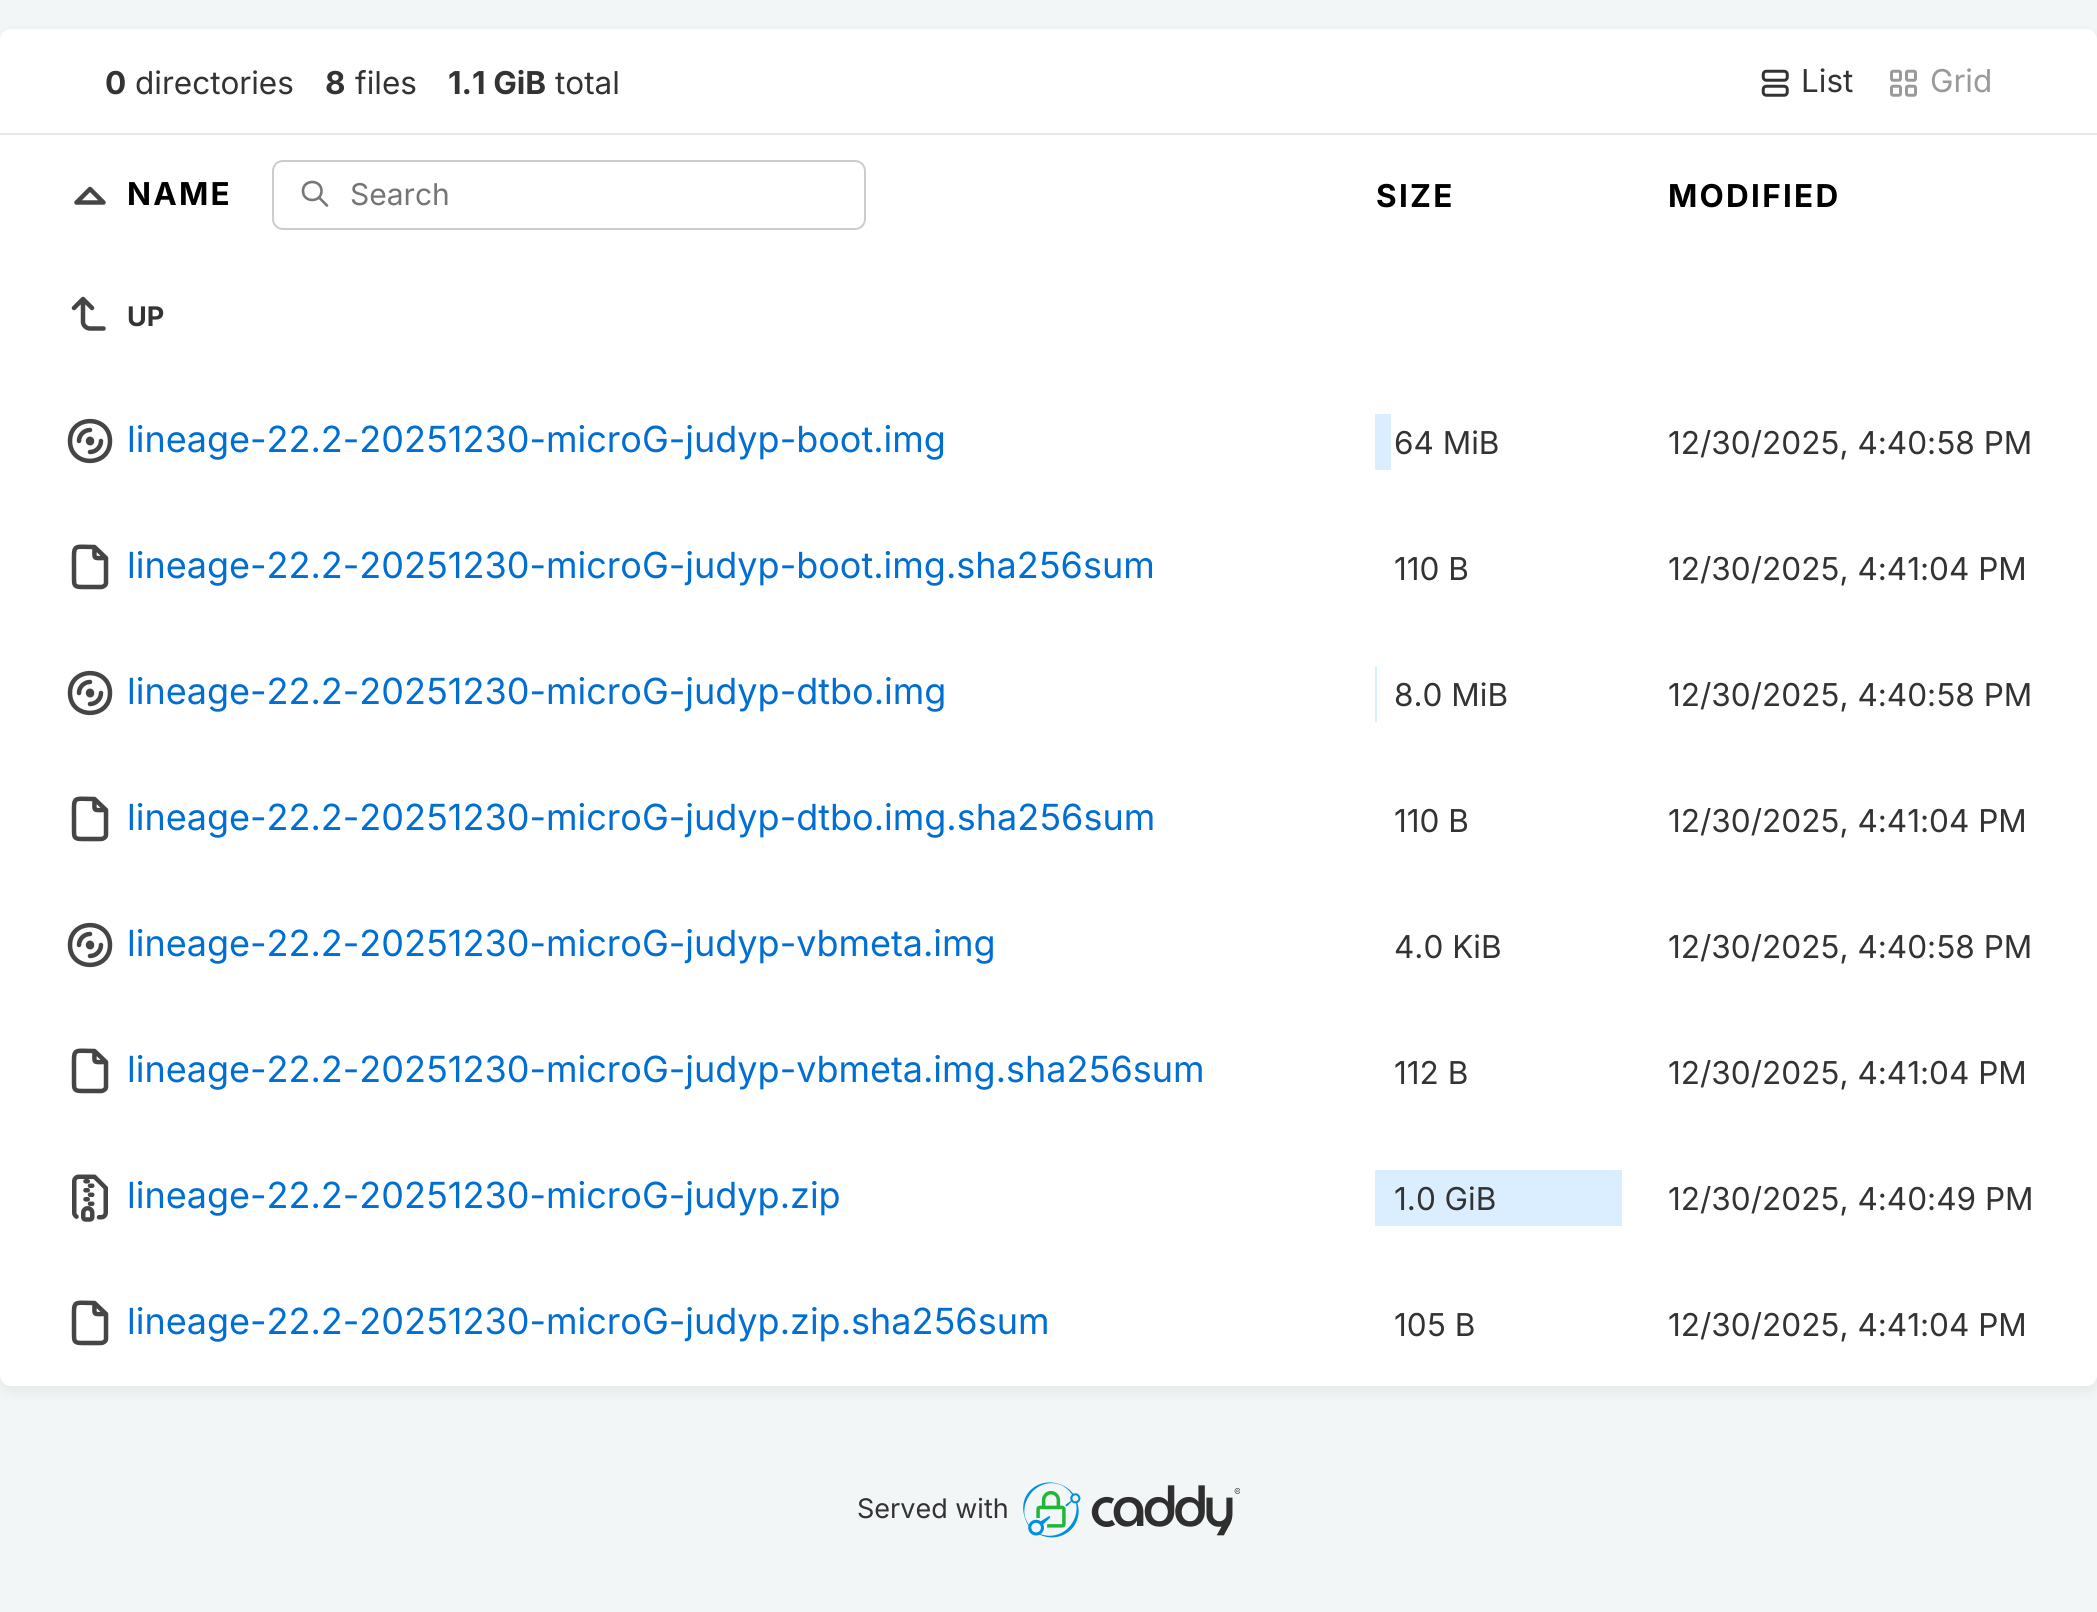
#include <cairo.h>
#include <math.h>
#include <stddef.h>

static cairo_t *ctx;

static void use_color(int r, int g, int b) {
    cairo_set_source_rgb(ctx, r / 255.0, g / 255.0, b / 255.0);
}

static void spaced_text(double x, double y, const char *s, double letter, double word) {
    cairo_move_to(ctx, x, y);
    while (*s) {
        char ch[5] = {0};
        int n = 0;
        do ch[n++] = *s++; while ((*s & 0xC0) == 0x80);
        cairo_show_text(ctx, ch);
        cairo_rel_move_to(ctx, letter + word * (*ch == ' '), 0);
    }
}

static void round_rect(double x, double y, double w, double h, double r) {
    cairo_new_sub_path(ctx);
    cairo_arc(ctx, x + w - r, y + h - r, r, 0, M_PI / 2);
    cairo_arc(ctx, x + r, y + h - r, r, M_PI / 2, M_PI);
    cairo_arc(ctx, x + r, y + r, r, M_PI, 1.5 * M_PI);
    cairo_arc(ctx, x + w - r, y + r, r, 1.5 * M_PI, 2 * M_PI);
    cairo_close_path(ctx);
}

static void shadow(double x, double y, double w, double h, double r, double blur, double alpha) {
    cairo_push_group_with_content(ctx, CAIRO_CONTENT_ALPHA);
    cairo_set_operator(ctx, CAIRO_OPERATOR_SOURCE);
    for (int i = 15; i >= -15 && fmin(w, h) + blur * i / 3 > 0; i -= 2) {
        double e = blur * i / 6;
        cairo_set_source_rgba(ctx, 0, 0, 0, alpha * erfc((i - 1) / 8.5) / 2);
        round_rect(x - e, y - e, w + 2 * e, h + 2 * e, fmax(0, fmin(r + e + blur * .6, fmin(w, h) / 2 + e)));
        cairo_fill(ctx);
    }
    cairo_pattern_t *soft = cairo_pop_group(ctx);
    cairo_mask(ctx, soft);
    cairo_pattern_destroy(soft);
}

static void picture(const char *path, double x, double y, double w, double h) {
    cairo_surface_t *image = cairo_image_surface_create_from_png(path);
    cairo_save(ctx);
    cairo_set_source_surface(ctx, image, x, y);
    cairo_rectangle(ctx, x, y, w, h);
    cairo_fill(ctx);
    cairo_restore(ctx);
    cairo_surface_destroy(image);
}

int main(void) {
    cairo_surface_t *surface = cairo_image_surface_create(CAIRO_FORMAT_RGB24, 2097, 1612);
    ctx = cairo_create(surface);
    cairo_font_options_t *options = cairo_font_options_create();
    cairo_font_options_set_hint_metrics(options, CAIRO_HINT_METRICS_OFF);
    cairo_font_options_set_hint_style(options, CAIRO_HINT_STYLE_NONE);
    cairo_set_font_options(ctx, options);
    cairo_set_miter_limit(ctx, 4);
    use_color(243, 246, 247);
    cairo_paint(ctx);
    use_color(0, 0, 0);
    shadow(-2, 32, 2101, 1361, 14, 5.5, 0.05);
    use_color(255, 255, 255);
    round_rect(0, 29, 2097, 1357, 11);
    cairo_fill(ctx);
    use_color(229, 233, 234);
    cairo_rectangle(ctx, 0, 133, 2097, 2);
    cairo_fill(ctx);
    cairo_select_font_face(ctx, "Inter", CAIRO_FONT_SLANT_NORMAL, CAIRO_FONT_WEIGHT_BOLD);
    cairo_set_font_size(ctx, 31.5);
    use_color(51, 51, 51);
    cairo_move_to(ctx, 105, 94);
    cairo_show_text(ctx, "0");
    cairo_select_font_face(ctx, "Inter", CAIRO_FONT_SLANT_NORMAL, CAIRO_FONT_WEIGHT_NORMAL);
    cairo_move_to(ctx, 135, 94);
    cairo_show_text(ctx, "directories");
    cairo_select_font_face(ctx, "Inter", CAIRO_FONT_SLANT_NORMAL, CAIRO_FONT_WEIGHT_BOLD);
    cairo_move_to(ctx, 325, 94);
    cairo_show_text(ctx, "8");
    cairo_select_font_face(ctx, "Inter", CAIRO_FONT_SLANT_NORMAL, CAIRO_FONT_WEIGHT_NORMAL);
    cairo_move_to(ctx, 355, 94);
    cairo_show_text(ctx, "files");
    cairo_select_font_face(ctx, "Inter", CAIRO_FONT_SLANT_NORMAL, CAIRO_FONT_WEIGHT_BOLD);
    cairo_move_to(ctx, 448, 94);
    cairo_show_text(ctx, "1.1 GiB");
    cairo_select_font_face(ctx, "Inter", CAIRO_FONT_SLANT_NORMAL, CAIRO_FONT_WEIGHT_NORMAL);
    cairo_move_to(ctx, 555, 94);
    cairo_show_text(ctx, "total");
    picture("img1.png", 1761, 69, 28, 28);
    cairo_move_to(ctx, 1801, 92);
    cairo_show_text(ctx, "List");
    picture("img2.png", 1890, 69, 27, 28);
    use_color(154, 154, 154);
    cairo_move_to(ctx, 1930, 92);
    cairo_show_text(ctx, "Grid");
    cairo_new_path(ctx);
    cairo_move_to(ctx, 103.5, 202.5);
    cairo_line_to(ctx, 90, 189);
    cairo_line_to(ctx, 76.5, 202.5);
    cairo_line_to(ctx, 103.5, 202.5);
    use_color(69, 69, 69);
    cairo_set_line_width(ctx, 4.5);
    cairo_set_line_cap(ctx, CAIRO_LINE_CAP_ROUND);
    cairo_set_line_join(ctx, CAIRO_LINE_JOIN_ROUND);
    cairo_stroke(ctx);
    cairo_select_font_face(ctx, "Inter", CAIRO_FONT_SLANT_NORMAL, CAIRO_FONT_WEIGHT_BOLD);
    use_color(0, 0, 0);
    spaced_text(127, 205, "NAME", 2.25, 0);
    cairo_new_path(ctx);
    cairo_move_to(ctx, 303, 191);
    cairo_curve_to(ctx, 303, 203, 321.5, 203, 321.5, 191);
    cairo_curve_to(ctx, 321.5, 179, 303, 179, 303, 191);
    cairo_move_to(ctx, 327, 205.5);
    cairo_line_to(ctx, 319, 197.5);
    use_color(119, 119, 119);
    cairo_set_line_width(ctx, 2.6);
    cairo_stroke(ctx);
    round_rect(273, 161, 592, 68, 10);
    use_color(204, 204, 204);
    cairo_set_line_width(ctx, 2);
    cairo_set_line_cap(ctx, CAIRO_LINE_CAP_BUTT);
    cairo_set_line_join(ctx, CAIRO_LINE_JOIN_MITER);
    cairo_stroke(ctx);
    cairo_select_font_face(ctx, "Inter", CAIRO_FONT_SLANT_NORMAL, CAIRO_FONT_WEIGHT_NORMAL);
    cairo_set_font_size(ctx, 30);
    use_color(117, 117, 117);
    cairo_move_to(ctx, 350, 205);
    cairo_show_text(ctx, "Search");
    cairo_select_font_face(ctx, "Inter", CAIRO_FONT_SLANT_NORMAL, CAIRO_FONT_WEIGHT_BOLD);
    cairo_set_font_size(ctx, 31.5);
    use_color(0, 0, 0);
    spaced_text(1376, 207, "SIZE", 2.25, 0);
    spaced_text(1668, 207, "MODIFIED", 2.25, 0);
    cairo_new_path(ctx);
    cairo_move_to(ctx, 103.5, 328.5);
    cairo_line_to(ctx, 90, 328.5);
    cairo_curve_to(ctx, 86.5, 328.5, 83, 325.5, 83, 322);
    cairo_line_to(ctx, 83, 299);
    cairo_line_to(ctx, 74, 308);
    cairo_move_to(ctx, 92, 308);
    cairo_line_to(ctx, 83, 299);
    use_color(69, 69, 69);
    cairo_set_line_width(ctx, 4.5);
    cairo_set_line_cap(ctx, CAIRO_LINE_CAP_ROUND);
    cairo_set_line_join(ctx, CAIRO_LINE_JOIN_ROUND);
    cairo_stroke(ctx);
    cairo_set_font_size(ctx, 27);
    use_color(51, 51, 51);
    cairo_move_to(ctx, 127, 326);
    cairo_show_text(ctx, "UP");
    cairo_new_path(ctx);
    cairo_move_to(ctx, 70, 441);
    cairo_curve_to(ctx, 70, 467.5, 110, 467.5, 110, 441);
    cairo_curve_to(ctx, 110, 414.5, 70, 414.5, 70, 441);
    cairo_move_to(ctx, 88, 441);
    cairo_curve_to(ctx, 88, 444, 92.5, 444, 92, 441);
    cairo_curve_to(ctx, 92, 438, 88, 438, 88, 441);
    cairo_move_to(ctx, 79, 441);
    cairo_curve_to(ctx, 79, 435, 84, 430, 90, 430);
    cairo_move_to(ctx, 90, 452);
    cairo_curve_to(ctx, 96, 452, 101, 447, 101, 441);
    use_color(69, 69, 69);
    cairo_stroke(ctx);
    cairo_select_font_face(ctx, "Inter", CAIRO_FONT_SLANT_NORMAL, CAIRO_FONT_WEIGHT_NORMAL);
    cairo_set_font_size(ctx, 36);
    use_color(0, 110, 211);
    cairo_move_to(ctx, 127, 452);
    cairo_show_text(ctx, "lineage-22.2-20251230-microG-judyp-boot.img");
    use_color(219, 238, 255);
    cairo_rectangle(ctx, 1375, 414, 16, 56);
    cairo_fill(ctx);
    cairo_set_font_size(ctx, 31.5);
    use_color(51, 51, 51);
    cairo_move_to(ctx, 1394, 454);
    cairo_show_text(ctx, "64 MiB");
    cairo_move_to(ctx, 1668, 454);
    cairo_show_text(ctx, "12/30/2025, 4:40:58 PM");
    cairo_new_path(ctx);
    cairo_move_to(ctx, 94.5, 547);
    cairo_curve_to(ctx, 94.5, 560, 92.5, 558, 106, 558);
    cairo_move_to(ctx, 101, 587);
    cairo_line_to(ctx, 82.5, 587);
    cairo_curve_to(ctx, 74, 587, 74, 585.5, 74, 577.5);
    cairo_line_to(ctx, 74, 567);
    cairo_curve_to(ctx, 74, 543, 72, 547, 94.5, 547);
    cairo_line_to(ctx, 106, 558);
    cairo_line_to(ctx, 106, 583);
    cairo_curve_to(ctx, 106, 585, 103.5, 587, 101, 587);
    cairo_close_path(ctx);
    use_color(69, 69, 69);
    cairo_stroke(ctx);
    cairo_set_font_size(ctx, 36);
    use_color(0, 110, 211);
    cairo_move_to(ctx, 127, 578);
    cairo_show_text(ctx, "lineage-22.2-20251230-microG-judyp-boot.img.sha256sum");
    cairo_set_font_size(ctx, 31.5);
    use_color(51, 51, 51);
    cairo_move_to(ctx, 1394, 580);
    cairo_show_text(ctx, "110 B");
    cairo_move_to(ctx, 1668, 580);
    cairo_show_text(ctx, "12/30/2025, 4:41:04 PM");
    cairo_new_path(ctx);
    cairo_move_to(ctx, 70, 693);
    cairo_curve_to(ctx, 70, 719.5, 110, 719.5, 110, 693);
    cairo_curve_to(ctx, 110, 666.5, 70, 666.5, 70, 693);
    cairo_move_to(ctx, 88, 693);
    cairo_curve_to(ctx, 88, 696, 92.5, 696, 92, 693);
    cairo_curve_to(ctx, 92, 690, 88, 690, 88, 693);
    cairo_move_to(ctx, 79, 693);
    cairo_curve_to(ctx, 79, 687, 84, 682, 90, 682);
    cairo_move_to(ctx, 90, 704);
    cairo_curve_to(ctx, 96, 704, 101, 699, 101, 693);
    use_color(69, 69, 69);
    cairo_stroke(ctx);
    cairo_set_font_size(ctx, 36);
    use_color(0, 110, 211);
    cairo_move_to(ctx, 127, 704);
    cairo_show_text(ctx, "lineage-22.2-20251230-microG-judyp-dtbo.img");
    use_color(219, 238, 255);
    cairo_rectangle(ctx, 1375, 666, 2, 56);
    cairo_fill(ctx);
    cairo_set_font_size(ctx, 31.5);
    use_color(51, 51, 51);
    cairo_move_to(ctx, 1394, 706);
    cairo_show_text(ctx, "8.0 MiB");
    cairo_move_to(ctx, 1668, 706);
    cairo_show_text(ctx, "12/30/2025, 4:40:58 PM");
    cairo_new_path(ctx);
    cairo_move_to(ctx, 94.5, 799);
    cairo_curve_to(ctx, 94.5, 812, 92.5, 810, 106, 810);
    cairo_move_to(ctx, 101, 839);
    cairo_line_to(ctx, 82.5, 839);
    cairo_curve_to(ctx, 74, 839, 74, 837.5, 74, 829.5);
    cairo_line_to(ctx, 74, 819);
    cairo_curve_to(ctx, 74, 795, 72, 799, 94.5, 799);
    cairo_line_to(ctx, 106, 810);
    cairo_line_to(ctx, 106, 835);
    cairo_curve_to(ctx, 106, 837, 103.5, 839, 101, 839);
    cairo_close_path(ctx);
    use_color(69, 69, 69);
    cairo_stroke(ctx);
    cairo_set_font_size(ctx, 36);
    use_color(0, 110, 211);
    cairo_move_to(ctx, 127, 830);
    cairo_show_text(ctx, "lineage-22.2-20251230-microG-judyp-dtbo.img.sha256sum");
    cairo_set_font_size(ctx, 31.5);
    use_color(51, 51, 51);
    cairo_move_to(ctx, 1394, 832);
    cairo_show_text(ctx, "110 B");
    cairo_move_to(ctx, 1668, 832);
    cairo_show_text(ctx, "12/30/2025, 4:41:04 PM");
    cairo_new_path(ctx);
    cairo_move_to(ctx, 70, 945);
    cairo_curve_to(ctx, 70, 971.5, 110, 971.5, 110, 945);
    cairo_curve_to(ctx, 110, 918.5, 70, 918.5, 70, 945);
    cairo_move_to(ctx, 88, 945);
    cairo_curve_to(ctx, 88, 948, 92.5, 948, 92, 945);
    cairo_curve_to(ctx, 92, 942, 88, 942, 88, 945);
    cairo_move_to(ctx, 79, 945);
    cairo_curve_to(ctx, 79, 939, 84, 934, 90, 934);
    cairo_move_to(ctx, 90, 956);
    cairo_curve_to(ctx, 96, 956, 101, 951, 101, 945);
    use_color(69, 69, 69);
    cairo_stroke(ctx);
    cairo_set_font_size(ctx, 36);
    use_color(0, 110, 211);
    cairo_move_to(ctx, 127, 956);
    cairo_show_text(ctx, "lineage-22.2-20251230-microG-judyp-vbmeta.img");
    cairo_set_font_size(ctx, 31.5);
    use_color(51, 51, 51);
    cairo_move_to(ctx, 1394, 958);
    cairo_show_text(ctx, "4.0 KiB");
    cairo_move_to(ctx, 1668, 958);
    cairo_show_text(ctx, "12/30/2025, 4:40:58 PM");
    cairo_new_path(ctx);
    cairo_move_to(ctx, 94.5, 1051);
    cairo_curve_to(ctx, 94.5, 1064, 92.5, 1062, 106, 1062);
    cairo_move_to(ctx, 101, 1091);
    cairo_line_to(ctx, 82.5, 1091);
    cairo_curve_to(ctx, 74, 1091, 74, 1089.5, 74, 1081.5);
    cairo_line_to(ctx, 74, 1071);
    cairo_curve_to(ctx, 74, 1047, 72, 1051, 94.5, 1051);
    cairo_line_to(ctx, 106, 1062);
    cairo_line_to(ctx, 106, 1087);
    cairo_curve_to(ctx, 106, 1089, 103.5, 1091, 101, 1091);
    cairo_close_path(ctx);
    use_color(69, 69, 69);
    cairo_stroke(ctx);
    cairo_set_font_size(ctx, 36);
    use_color(0, 110, 211);
    cairo_move_to(ctx, 127, 1082);
    cairo_show_text(ctx, "lineage-22.2-20251230-microG-judyp-vbmeta.img.sha256sum");
    cairo_set_font_size(ctx, 31.5);
    use_color(51, 51, 51);
    cairo_move_to(ctx, 1394, 1084);
    cairo_show_text(ctx, "112 B");
    cairo_move_to(ctx, 1668, 1084);
    cairo_show_text(ctx, "12/30/2025, 4:41:04 PM");
    picture("img3.png", 72, 1174, 36, 48);
    cairo_set_font_size(ctx, 36);
    use_color(0, 110, 211);
    cairo_move_to(ctx, 127, 1208);
    cairo_show_text(ctx, "lineage-22.2-20251230-microG-judyp.zip");
    use_color(219, 238, 255);
    cairo_rectangle(ctx, 1375, 1170, 247, 56);
    cairo_fill(ctx);
    cairo_set_font_size(ctx, 31.5);
    use_color(51, 51, 51);
    cairo_move_to(ctx, 1394, 1210);
    cairo_show_text(ctx, "1.0 GiB");
    cairo_move_to(ctx, 1668, 1210);
    cairo_show_text(ctx, "12/30/2025, 4:40:49 PM");
    cairo_new_path(ctx);
    cairo_move_to(ctx, 94.5, 1303);
    cairo_curve_to(ctx, 94.5, 1316, 92.5, 1314, 106, 1314);
    cairo_move_to(ctx, 101, 1343);
    cairo_line_to(ctx, 82.5, 1343);
    cairo_curve_to(ctx, 74, 1343, 74, 1341.5, 74, 1333.5);
    cairo_line_to(ctx, 74, 1323);
    cairo_curve_to(ctx, 74, 1299, 72, 1303, 94.5, 1303);
    cairo_line_to(ctx, 106, 1314);
    cairo_line_to(ctx, 106, 1339);
    cairo_curve_to(ctx, 106, 1341, 103.5, 1343, 101, 1343);
    cairo_close_path(ctx);
    use_color(69, 69, 69);
    cairo_stroke(ctx);
    cairo_set_font_size(ctx, 36);
    use_color(0, 110, 211);
    cairo_move_to(ctx, 127, 1334);
    cairo_show_text(ctx, "lineage-22.2-20251230-microG-judyp.zip.sha256sum");
    cairo_set_font_size(ctx, 31.5);
    use_color(51, 51, 51);
    cairo_move_to(ctx, 1394, 1336);
    cairo_show_text(ctx, "105 B");
    cairo_move_to(ctx, 1668, 1336);
    cairo_show_text(ctx, "12/30/2025, 4:41:04 PM");
    cairo_set_font_size(ctx, 27);
    cairo_move_to(ctx, 857, 1518);
    cairo_show_text(ctx, "Served with");
    picture("img4.png", 1023, 1482, 217, 56);
    cairo_surface_write_to_png(surface, "result.png");
    cairo_font_options_destroy(options);
    cairo_destroy(ctx);
    cairo_surface_destroy(surface);
    return 0;
}
